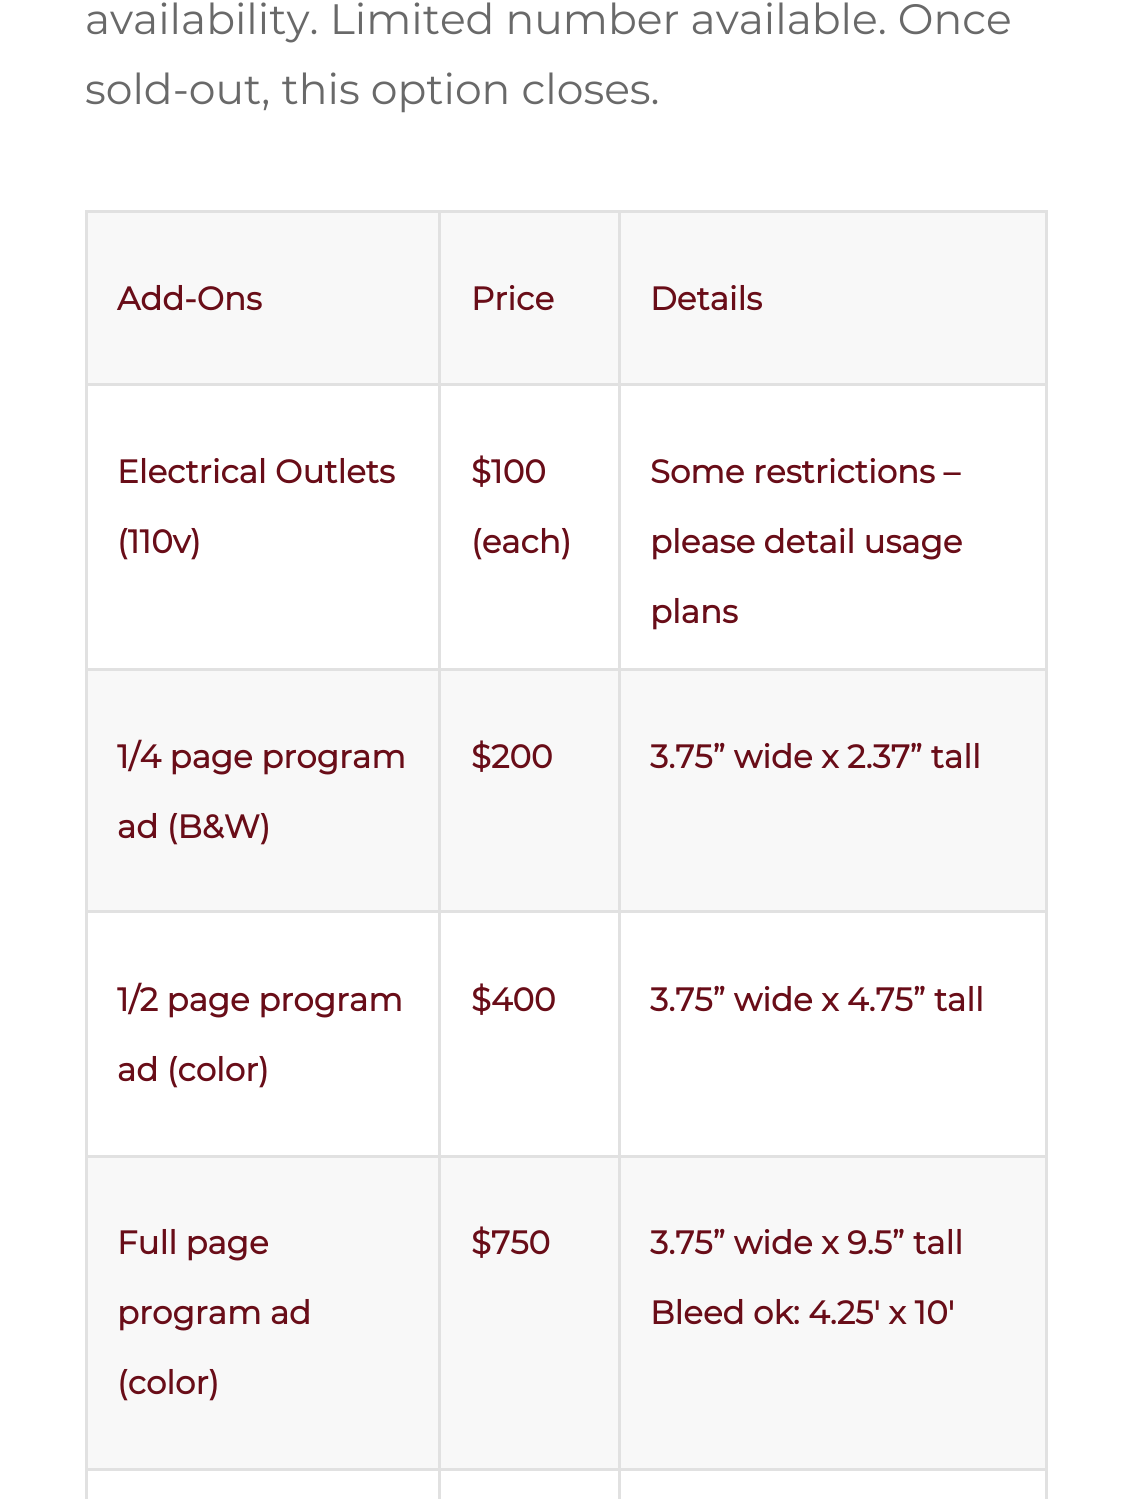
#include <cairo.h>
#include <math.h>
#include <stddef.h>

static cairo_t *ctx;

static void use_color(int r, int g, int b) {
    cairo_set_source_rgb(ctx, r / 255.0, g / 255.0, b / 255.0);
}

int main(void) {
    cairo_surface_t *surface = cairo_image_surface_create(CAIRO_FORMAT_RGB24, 1131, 1499);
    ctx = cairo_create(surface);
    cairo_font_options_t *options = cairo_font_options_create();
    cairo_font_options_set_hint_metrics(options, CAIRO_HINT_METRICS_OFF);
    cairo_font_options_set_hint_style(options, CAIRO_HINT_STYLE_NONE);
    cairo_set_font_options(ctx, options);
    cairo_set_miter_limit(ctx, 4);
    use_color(255, 255, 255);
    cairo_paint(ctx);
    cairo_select_font_face(ctx, "Montserrat Thin", CAIRO_FONT_SLANT_NORMAL, CAIRO_FONT_WEIGHT_NORMAL);
    cairo_set_font_size(ctx, 42.5);
    use_color(105, 105, 105);
    cairo_move_to(ctx, 85, 34);
    cairo_show_text(ctx, "availability. Limited number available. Once");
    cairo_move_to(ctx, 85, 104);
    cairo_show_text(ctx, "sold-out, this option closes.");
    use_color(248, 248, 248);
    cairo_rectangle(ctx, 88, 213, 957, 1255);
    cairo_fill(ctx);
    use_color(225, 225, 225);
    cairo_rectangle(ctx, 85, 210, 963, 3);
    cairo_fill(ctx);
    cairo_rectangle(ctx, 1045, 383, 3, 1116);
    cairo_fill(ctx);
    cairo_rectangle(ctx, 1045, 210, 3, 175);
    cairo_fill(ctx);
    use_color(255, 255, 255);
    cairo_rectangle(ctx, 88, 386, 957, 282);
    cairo_fill(ctx);
    cairo_rectangle(ctx, 88, 913, 957, 242);
    cairo_fill(ctx);
    use_color(225, 225, 225);
    cairo_rectangle(ctx, 618, 1468, 3, 31);
    cairo_fill(ctx);
    cairo_rectangle(ctx, 618, 1468, 430, 3);
    cairo_fill(ctx);
    cairo_rectangle(ctx, 618, 1155, 3, 315);
    cairo_fill(ctx);
    cairo_rectangle(ctx, 618, 1155, 430, 3);
    cairo_fill(ctx);
    cairo_rectangle(ctx, 618, 910, 3, 248);
    cairo_fill(ctx);
    cairo_rectangle(ctx, 618, 910, 430, 3);
    cairo_fill(ctx);
    cairo_rectangle(ctx, 618, 668, 3, 245);
    cairo_fill(ctx);
    cairo_rectangle(ctx, 618, 668, 430, 3);
    cairo_fill(ctx);
    cairo_rectangle(ctx, 618, 383, 3, 287);
    cairo_fill(ctx);
    cairo_rectangle(ctx, 618, 383, 430, 3);
    cairo_fill(ctx);
    cairo_rectangle(ctx, 618, 210, 3, 175);
    cairo_fill(ctx);
    cairo_rectangle(ctx, 438, 1468, 3, 31);
    cairo_fill(ctx);
    cairo_rectangle(ctx, 438, 1468, 182, 3);
    cairo_fill(ctx);
    cairo_rectangle(ctx, 438, 1155, 3, 315);
    cairo_fill(ctx);
    cairo_rectangle(ctx, 438, 1155, 182, 3);
    cairo_fill(ctx);
    cairo_rectangle(ctx, 438, 910, 3, 248);
    cairo_fill(ctx);
    cairo_rectangle(ctx, 438, 910, 182, 3);
    cairo_fill(ctx);
    cairo_rectangle(ctx, 438, 668, 3, 245);
    cairo_fill(ctx);
    cairo_rectangle(ctx, 438, 668, 182, 3);
    cairo_fill(ctx);
    cairo_rectangle(ctx, 438, 383, 3, 287);
    cairo_fill(ctx);
    cairo_rectangle(ctx, 438, 383, 182, 3);
    cairo_fill(ctx);
    cairo_rectangle(ctx, 438, 210, 3, 175);
    cairo_fill(ctx);
    cairo_rectangle(ctx, 85, 1468, 3, 31);
    cairo_fill(ctx);
    cairo_rectangle(ctx, 85, 1468, 355, 3);
    cairo_fill(ctx);
    cairo_rectangle(ctx, 85, 1155, 3, 315);
    cairo_fill(ctx);
    cairo_rectangle(ctx, 85, 1155, 355, 3);
    cairo_fill(ctx);
    cairo_rectangle(ctx, 85, 910, 3, 248);
    cairo_fill(ctx);
    cairo_rectangle(ctx, 85, 910, 355, 3);
    cairo_fill(ctx);
    cairo_rectangle(ctx, 85, 668, 3, 245);
    cairo_fill(ctx);
    cairo_rectangle(ctx, 85, 668, 355, 3);
    cairo_fill(ctx);
    cairo_rectangle(ctx, 85, 383, 3, 287);
    cairo_fill(ctx);
    cairo_rectangle(ctx, 85, 383, 355, 3);
    cairo_fill(ctx);
    cairo_rectangle(ctx, 85, 210, 3, 175);
    cairo_fill(ctx);
    cairo_select_font_face(ctx, "Montserrat", CAIRO_FONT_SLANT_NORMAL, CAIRO_FONT_WEIGHT_BOLD);
    cairo_set_font_size(ctx, 32.5);
    use_color(105, 13, 24);
    cairo_move_to(ctx, 117, 310);
    cairo_show_text(ctx, "Add-Ons");
    cairo_move_to(ctx, 471, 310);
    cairo_show_text(ctx, "Price");
    cairo_move_to(ctx, 650, 310);
    cairo_show_text(ctx, "Details");
    cairo_move_to(ctx, 117, 483);
    cairo_show_text(ctx, "Electrical Outlets");
    cairo_move_to(ctx, 117, 553);
    cairo_show_text(ctx, "(110v)");
    cairo_move_to(ctx, 471, 483);
    cairo_show_text(ctx, "$100");
    cairo_move_to(ctx, 471, 553);
    cairo_show_text(ctx, "(each)");
    cairo_move_to(ctx, 650, 483);
    cairo_show_text(ctx, "Some restrictions –");
    cairo_move_to(ctx, 650, 553);
    cairo_show_text(ctx, "please detail usage");
    cairo_move_to(ctx, 650, 623);
    cairo_show_text(ctx, "plans");
    cairo_move_to(ctx, 117, 768);
    cairo_show_text(ctx, "1/4 page program");
    cairo_move_to(ctx, 117, 838);
    cairo_show_text(ctx, "ad (B&W)");
    cairo_move_to(ctx, 471, 768);
    cairo_show_text(ctx, "$200");
    cairo_move_to(ctx, 650, 768);
    cairo_show_text(ctx, "3.75” wide x 2.37” tall");
    cairo_move_to(ctx, 117, 1011);
    cairo_show_text(ctx, "1/2 page program");
    cairo_move_to(ctx, 117, 1081);
    cairo_show_text(ctx, "ad (color)");
    cairo_move_to(ctx, 471, 1011);
    cairo_show_text(ctx, "$400");
    cairo_move_to(ctx, 650, 1011);
    cairo_show_text(ctx, "3.75” wide x 4.75” tall");
    cairo_move_to(ctx, 117, 1254);
    cairo_show_text(ctx, "Full page");
    cairo_move_to(ctx, 117, 1324);
    cairo_show_text(ctx, "program ad");
    cairo_move_to(ctx, 117, 1394);
    cairo_show_text(ctx, "(color)");
    cairo_move_to(ctx, 471, 1254);
    cairo_show_text(ctx, "$750");
    cairo_move_to(ctx, 650, 1254);
    cairo_show_text(ctx, "3.75” wide x 9.5” tall");
    cairo_move_to(ctx, 650, 1324);
    cairo_show_text(ctx, "Bleed ok: 4.25′ x 10′");
    cairo_surface_write_to_png(surface, "result.png");
    cairo_font_options_destroy(options);
    cairo_destroy(ctx);
    cairo_surface_destroy(surface);
    return 0;
}
